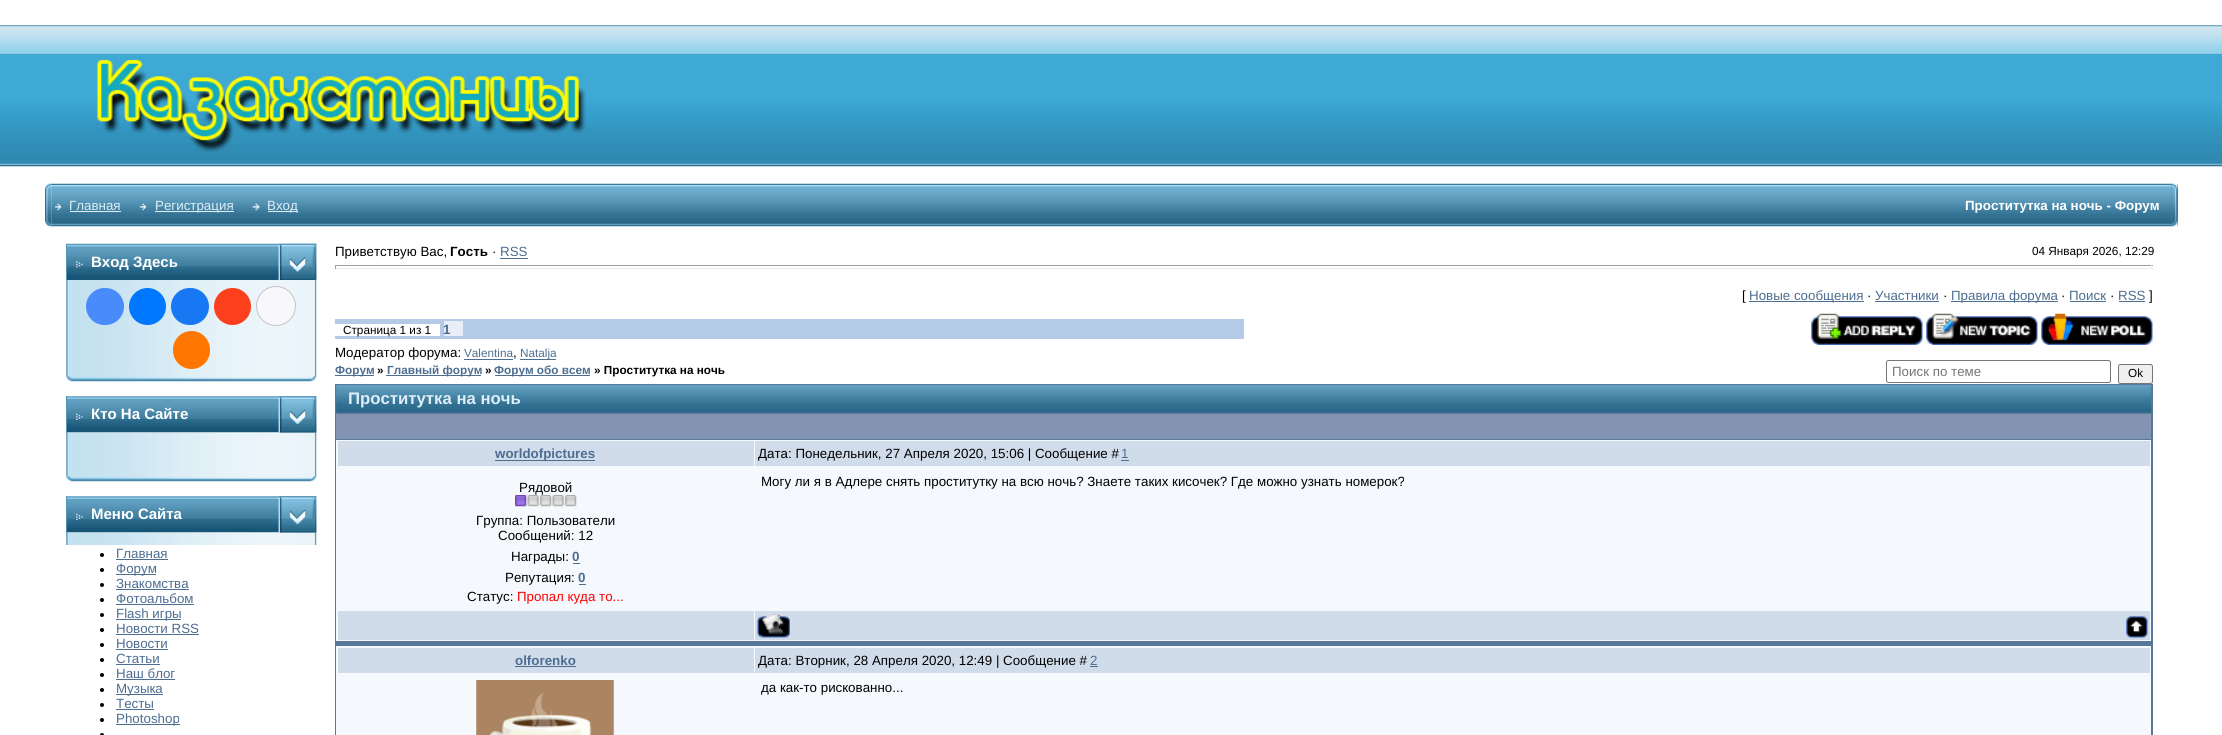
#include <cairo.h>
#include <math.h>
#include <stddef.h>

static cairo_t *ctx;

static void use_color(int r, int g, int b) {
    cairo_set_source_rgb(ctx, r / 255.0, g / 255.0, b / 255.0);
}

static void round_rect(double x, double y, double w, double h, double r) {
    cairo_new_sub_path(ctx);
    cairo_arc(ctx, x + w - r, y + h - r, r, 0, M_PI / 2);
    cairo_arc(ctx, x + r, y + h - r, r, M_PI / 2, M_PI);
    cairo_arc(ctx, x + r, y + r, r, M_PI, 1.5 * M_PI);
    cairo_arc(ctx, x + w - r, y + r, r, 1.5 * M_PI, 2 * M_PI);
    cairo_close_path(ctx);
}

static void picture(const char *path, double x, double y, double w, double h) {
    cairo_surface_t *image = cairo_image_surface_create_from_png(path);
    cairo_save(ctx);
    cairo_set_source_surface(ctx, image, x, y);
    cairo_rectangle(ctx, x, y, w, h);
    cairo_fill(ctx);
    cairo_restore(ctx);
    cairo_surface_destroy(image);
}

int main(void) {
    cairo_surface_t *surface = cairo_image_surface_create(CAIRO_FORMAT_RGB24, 2222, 735);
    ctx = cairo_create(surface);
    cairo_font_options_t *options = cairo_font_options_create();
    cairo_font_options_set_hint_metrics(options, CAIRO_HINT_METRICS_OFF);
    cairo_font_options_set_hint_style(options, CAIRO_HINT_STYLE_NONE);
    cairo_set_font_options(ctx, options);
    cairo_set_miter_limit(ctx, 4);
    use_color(255, 255, 255);
    cairo_paint(ctx);
    picture("img1.png", 0, 25, 2222, 142);
    picture("img2.png", 97, 59, 489, 93);
    picture("img4.png", 51, 183, 1484, 44);
    picture("img3.png", 45, 183, 7, 44);
    picture("img5.png", 54, 203, 8, 8);
    cairo_select_font_face(ctx, "Liberation Sans", CAIRO_FONT_SLANT_NORMAL, CAIRO_FONT_WEIGHT_NORMAL);
    cairo_set_font_size(ctx, 13.35);
    use_color(221, 238, 247);
    cairo_move_to(ctx, 69, 210);
    cairo_show_text(ctx, "Главная");
    cairo_rectangle(ctx, 70, 211, 51, 1);
    cairo_fill(ctx);
    picture("img5.png", 139, 203, 8, 8);
    cairo_rectangle(ctx, 155, 211, 79, 1);
    cairo_fill(ctx);
    cairo_move_to(ctx, 155, 210);
    cairo_show_text(ctx, "Регистрация");
    picture("img6.png", 252, 203, 8, 8);
    cairo_rectangle(ctx, 268, 211, 30, 1);
    cairo_fill(ctx);
    cairo_move_to(ctx, 267, 210);
    cairo_show_text(ctx, "Вход");
    picture("img7.png", 1535, 183, 637, 44);
    cairo_select_font_face(ctx, "Liberation Sans", CAIRO_FONT_SLANT_NORMAL, CAIRO_FONT_WEIGHT_BOLD);
    use_color(255, 255, 255);
    cairo_move_to(ctx, 1965, 210);
    cairo_show_text(ctx, "Проститутка на ночь - Форум");
    use_color(49, 142, 183);
    cairo_rectangle(ctx, 2171, 184, 7, 42);
    cairo_fill(ctx);
    picture("img8.png", 2171, 183, 7, 44);
    picture("img9.png", 66, 243, 213, 37);
    use_color(86, 148, 181);
    cairo_rectangle(ctx, 66, 244, 1, 36);
    cairo_fill(ctx);
    picture("img10.png", 76, 261, 7, 7);
    cairo_set_font_size(ctx, 15);
    use_color(255, 255, 255);
    cairo_move_to(ctx, 91, 267);
    cairo_show_text(ctx, "Вход Здесь");
    picture("img11.png", 278, 243, 39, 37);
    picture("img12.png", 278, 243, 39, 37);
    picture("img13.png", 66, 280, 251, 95);
    use_color(73, 139, 250);
    round_rect(86, 288, 38, 37, 18.5);
    cairo_fill(ctx);
    use_color(0, 119, 255);
    cairo_arc(ctx, 147.5, 306.5, 18.5, 0, 2 * M_PI);
    cairo_fill(ctx);
    use_color(24, 119, 242);
    round_rect(171, 288, 38, 37, 18.5);
    cairo_fill(ctx);
    use_color(252, 63, 29);
    cairo_arc(ctx, 232.5, 306.5, 18.5, 0, 2 * M_PI);
    cairo_fill(ctx);
    use_color(248, 248, 252);
    cairo_arc(ctx, 276, 306, 19.5, 0, 2 * M_PI);
    cairo_fill_preserve(ctx);
    use_color(196, 196, 196);
    cairo_set_line_width(ctx, 1);
    cairo_stroke(ctx);
    use_color(255, 119, 0);
    round_rect(173, 331, 37, 38, 18.5);
    cairo_fill(ctx);
    picture("img14.png", 66, 375, 251, 7);
    picture("img15.png", 67, 396, 212, 37);
    use_color(86, 148, 181);
    cairo_rectangle(ctx, 66, 396, 1, 37);
    cairo_fill(ctx);
    picture("img16.png", 76, 413, 7, 7);
    use_color(255, 255, 255);
    cairo_move_to(ctx, 91, 419);
    cairo_show_text(ctx, "Кто На Сайте");
    picture("img17.png", 278, 396, 39, 37);
    picture("img19.png", 66, 432, 251, 43);
    picture("img18.png", 278, 396, 39, 37);
    picture("img14.png", 66, 475, 251, 7);
    picture("img15.png", 67, 496, 212, 37);
    use_color(86, 148, 181);
    cairo_rectangle(ctx, 66, 496, 1, 37);
    cairo_fill(ctx);
    picture("img16.png", 76, 513, 7, 7);
    use_color(255, 255, 255);
    cairo_move_to(ctx, 91, 519);
    cairo_show_text(ctx, "Меню Сайта");
    picture("img17.png", 278, 496, 39, 37);
    picture("img20.png", 66, 532, 251, 13);
    picture("img18.png", 278, 496, 39, 37);
    use_color(0, 0, 0);
    cairo_arc(ctx, 102, 555, 2, 0, 2 * M_PI);
    cairo_fill(ctx);
    cairo_select_font_face(ctx, "Liberation Sans", CAIRO_FONT_SLANT_NORMAL, CAIRO_FONT_WEIGHT_NORMAL);
    cairo_set_font_size(ctx, 13.35);
    use_color(77, 109, 145);
    cairo_move_to(ctx, 116, 558);
    cairo_show_text(ctx, "Главная");
    cairo_rectangle(ctx, 116, 559, 52, 1);
    cairo_fill(ctx);
    use_color(0, 0, 0);
    cairo_arc(ctx, 102, 570, 2, 0, 2 * M_PI);
    cairo_fill(ctx);
    use_color(77, 109, 145);
    cairo_rectangle(ctx, 116, 574, 40, 1);
    cairo_fill(ctx);
    cairo_move_to(ctx, 116, 573);
    cairo_show_text(ctx, "Форум");
    use_color(0, 0, 0);
    cairo_new_path(ctx);
    cairo_arc(ctx, 102, 585, 2, 0, 2 * M_PI);
    cairo_fill(ctx);
    use_color(77, 109, 145);
    cairo_move_to(ctx, 116, 588);
    cairo_show_text(ctx, "Знакомства");
    cairo_rectangle(ctx, 116, 589, 73, 1);
    cairo_fill(ctx);
    use_color(0, 0, 0);
    cairo_arc(ctx, 102, 600, 2, 0, 2 * M_PI);
    cairo_fill(ctx);
    use_color(77, 109, 145);
    cairo_move_to(ctx, 116, 603);
    cairo_show_text(ctx, "Фотоальбом");
    cairo_rectangle(ctx, 116, 604, 78, 1);
    cairo_fill(ctx);
    use_color(0, 0, 0);
    cairo_arc(ctx, 102, 615, 2, 0, 2 * M_PI);
    cairo_fill(ctx);
    use_color(77, 109, 145);
    cairo_rectangle(ctx, 116, 619, 65, 1);
    cairo_fill(ctx);
    cairo_move_to(ctx, 116, 618);
    cairo_show_text(ctx, "Flash игры");
    use_color(0, 0, 0);
    cairo_new_path(ctx);
    cairo_arc(ctx, 102, 630, 2, 0, 2 * M_PI);
    cairo_fill(ctx);
    use_color(77, 109, 145);
    cairo_move_to(ctx, 116, 633);
    cairo_show_text(ctx, "Новости RSS");
    cairo_rectangle(ctx, 116, 634, 83, 1);
    cairo_fill(ctx);
    use_color(0, 0, 0);
    cairo_arc(ctx, 102, 645, 2, 0, 2 * M_PI);
    cairo_fill(ctx);
    use_color(77, 109, 145);
    cairo_move_to(ctx, 116, 648);
    cairo_show_text(ctx, "Новости");
    cairo_rectangle(ctx, 116, 649, 52, 1);
    cairo_fill(ctx);
    use_color(0, 0, 0);
    cairo_arc(ctx, 102, 660, 2, 0, 2 * M_PI);
    cairo_fill(ctx);
    use_color(77, 109, 145);
    cairo_move_to(ctx, 116, 663);
    cairo_show_text(ctx, "Статьи");
    cairo_rectangle(ctx, 116, 664, 44, 1);
    cairo_fill(ctx);
    use_color(0, 0, 0);
    cairo_arc(ctx, 102, 675, 2, 0, 2 * M_PI);
    cairo_fill(ctx);
    use_color(77, 109, 145);
    cairo_move_to(ctx, 116, 678);
    cairo_show_text(ctx, "Наш блог");
    cairo_rectangle(ctx, 116, 679, 59, 1);
    cairo_fill(ctx);
    use_color(0, 0, 0);
    cairo_arc(ctx, 102, 690, 2, 0, 2 * M_PI);
    cairo_fill(ctx);
    use_color(77, 109, 145);
    cairo_rectangle(ctx, 116, 694, 47, 1);
    cairo_fill(ctx);
    cairo_move_to(ctx, 116, 693);
    cairo_show_text(ctx, "Музыка");
    use_color(0, 0, 0);
    cairo_new_path(ctx);
    cairo_arc(ctx, 102, 705, 2, 0, 2 * M_PI);
    cairo_fill(ctx);
    use_color(77, 109, 145);
    cairo_move_to(ctx, 116, 708);
    cairo_show_text(ctx, "Тесты");
    cairo_rectangle(ctx, 116, 709, 38, 1);
    cairo_fill(ctx);
    use_color(0, 0, 0);
    cairo_arc(ctx, 102, 720, 2, 0, 2 * M_PI);
    cairo_fill(ctx);
    use_color(77, 109, 145);
    cairo_rectangle(ctx, 116, 724, 64, 1);
    cairo_fill(ctx);
    cairo_move_to(ctx, 116, 723);
    cairo_show_text(ctx, "Photoshop");
    use_color(0, 0, 0);
    cairo_new_path(ctx);
    cairo_arc(ctx, 102, 735, 2, 0, 2 * M_PI);
    cairo_fill(ctx);
    cairo_move_to(ctx, 335, 256);
    cairo_show_text(ctx, "Приветствую Вас,");
    cairo_select_font_face(ctx, "Liberation Sans", CAIRO_FONT_SLANT_NORMAL, CAIRO_FONT_WEIGHT_BOLD);
    cairo_move_to(ctx, 450, 256);
    cairo_show_text(ctx, "Гость");
    cairo_select_font_face(ctx, "Liberation Sans", CAIRO_FONT_SLANT_NORMAL, CAIRO_FONT_WEIGHT_NORMAL);
    cairo_move_to(ctx, 492, 256);
    cairo_show_text(ctx, "·");
    use_color(77, 109, 145);
    cairo_move_to(ctx, 500, 256);
    cairo_show_text(ctx, "RSS");
    cairo_rectangle(ctx, 500, 258, 28, 1);
    cairo_fill(ctx);
    cairo_set_font_size(ctx, 11.75);
    use_color(0, 0, 0);
    cairo_move_to(ctx, 2032, 255);
    cairo_show_text(ctx, "04 Января 2026, 12:29");
    use_color(159, 159, 159);
    cairo_rectangle(ctx, 335, 265, 1818, 1);
    cairo_fill(ctx);
    use_color(238, 238, 238);
    cairo_rectangle(ctx, 2151, 265, 1, 4);
    cairo_fill(ctx);
    cairo_rectangle(ctx, 335, 268, 1818, 1);
    cairo_fill(ctx);
    use_color(159, 159, 159);
    cairo_rectangle(ctx, 335, 265, 1, 4);
    cairo_fill(ctx);
    cairo_set_font_size(ctx, 13.35);
    use_color(0, 0, 0);
    cairo_move_to(ctx, 1742, 300);
    cairo_show_text(ctx, "[");
    use_color(77, 109, 145);
    cairo_rectangle(ctx, 1749, 301, 115, 1);
    cairo_fill(ctx);
    cairo_move_to(ctx, 1749, 300);
    cairo_show_text(ctx, "Новые сообщения");
    use_color(0, 0, 0);
    cairo_move_to(ctx, 1867, 300);
    cairo_show_text(ctx, "·");
    use_color(77, 109, 145);
    cairo_move_to(ctx, 1875, 300);
    cairo_show_text(ctx, "Участники");
    cairo_rectangle(ctx, 1875, 301, 64, 1);
    cairo_fill(ctx);
    use_color(0, 0, 0);
    cairo_move_to(ctx, 1943, 300);
    cairo_show_text(ctx, "·");
    use_color(77, 109, 145);
    cairo_rectangle(ctx, 1951, 301, 107, 1);
    cairo_fill(ctx);
    cairo_move_to(ctx, 1951, 300);
    cairo_show_text(ctx, "Правила форума");
    use_color(0, 0, 0);
    cairo_move_to(ctx, 2061, 300);
    cairo_show_text(ctx, "·");
    use_color(77, 109, 145);
    cairo_move_to(ctx, 2069, 300);
    cairo_show_text(ctx, "Поиск");
    cairo_rectangle(ctx, 2070, 301, 36, 1);
    cairo_fill(ctx);
    use_color(0, 0, 0);
    cairo_move_to(ctx, 2110, 300);
    cairo_show_text(ctx, "·");
    use_color(77, 109, 145);
    cairo_move_to(ctx, 2118, 300);
    cairo_show_text(ctx, "RSS");
    cairo_rectangle(ctx, 2119, 301, 26, 1);
    cairo_fill(ctx);
    use_color(0, 0, 0);
    cairo_move_to(ctx, 2149, 300);
    cairo_show_text(ctx, "]");
    use_color(180, 203, 231);
    cairo_rectangle(ctx, 335, 319, 909, 20);
    cairo_fill(ctx);
    use_color(255, 255, 255);
    cairo_rectangle(ctx, 335, 324, 105, 12);
    cairo_fill(ctx);
    cairo_set_font_size(ctx, 11.75);
    use_color(0, 0, 0);
    cairo_move_to(ctx, 343, 334);
    cairo_show_text(ctx, "Страница 1 из 1");
    use_color(231, 238, 248);
    cairo_rectangle(ctx, 444, 321, 19, 15);
    cairo_fill(ctx);
    cairo_select_font_face(ctx, "Liberation Sans", CAIRO_FONT_SLANT_NORMAL, CAIRO_FONT_WEIGHT_BOLD);
    cairo_set_font_size(ctx, 13.35);
    use_color(77, 109, 145);
    cairo_move_to(ctx, 443, 334);
    cairo_show_text(ctx, "1");
    picture("img21.png", 1811, 313, 112, 32);
    picture("img22.png", 1926, 313, 112, 32);
    picture("img23.png", 2041, 313, 112, 32);
    cairo_select_font_face(ctx, "Liberation Sans", CAIRO_FONT_SLANT_NORMAL, CAIRO_FONT_WEIGHT_NORMAL);
    use_color(0, 0, 0);
    cairo_move_to(ctx, 335, 357);
    cairo_show_text(ctx, "Модератор форума:");
    cairo_set_font_size(ctx, 11.75);
    use_color(77, 109, 145);
    cairo_move_to(ctx, 464, 357);
    cairo_show_text(ctx, "Valentina");
    cairo_set_font_size(ctx, 13.35);
    use_color(0, 0, 0);
    cairo_move_to(ctx, 513, 357);
    cairo_show_text(ctx, ",");
    use_color(77, 109, 145);
    cairo_rectangle(ctx, 464, 359, 49, 1);
    cairo_fill(ctx);
    cairo_rectangle(ctx, 520, 359, 36, 1);
    cairo_fill(ctx);
    cairo_set_font_size(ctx, 11.75);
    cairo_move_to(ctx, 520, 357);
    cairo_show_text(ctx, "Natalja");
    cairo_rectangle(ctx, 335, 375, 39, 1);
    cairo_fill(ctx);
    cairo_select_font_face(ctx, "Liberation Sans", CAIRO_FONT_SLANT_NORMAL, CAIRO_FONT_WEIGHT_BOLD);
    cairo_move_to(ctx, 335, 374);
    cairo_show_text(ctx, "Форум");
    use_color(0, 0, 0);
    cairo_move_to(ctx, 377, 374);
    cairo_show_text(ctx, "»");
    use_color(77, 109, 145);
    cairo_rectangle(ctx, 386, 375, 95, 1);
    cairo_fill(ctx);
    cairo_move_to(ctx, 387, 374);
    cairo_show_text(ctx, "Главный форум");
    use_color(0, 0, 0);
    cairo_move_to(ctx, 485, 374);
    cairo_show_text(ctx, "»");
    use_color(77, 109, 145);
    cairo_rectangle(ctx, 495, 375, 95, 1);
    cairo_fill(ctx);
    cairo_move_to(ctx, 494, 374);
    cairo_show_text(ctx, "Форум обо всем");
    use_color(0, 0, 0);
    cairo_move_to(ctx, 594, 374);
    cairo_show_text(ctx, "» Проститутка на ночь");
    round_rect(1886.5, 360.5, 224, 22, 2);
    use_color(118, 118, 118);
    cairo_stroke(ctx);
    cairo_select_font_face(ctx, "Liberation Sans", CAIRO_FONT_SLANT_NORMAL, CAIRO_FONT_WEIGHT_NORMAL);
    cairo_set_font_size(ctx, 13.35);
    use_color(117, 117, 117);
    cairo_move_to(ctx, 1892, 376);
    cairo_show_text(ctx, "Поиск по теме");
    use_color(239, 239, 239);
    round_rect(2118.5, 364.5, 34, 19, 2);
    cairo_fill_preserve(ctx);
    use_color(118, 118, 118);
    cairo_stroke(ctx);
    cairo_set_font_size(ctx, 11.75);
    use_color(0, 0, 0);
    cairo_move_to(ctx, 2128, 377);
    cairo_show_text(ctx, "Ok");
    use_color(89, 119, 152);
    cairo_rectangle(ctx, 335, 384, 1818, 351);
    cairo_fill(ctx);
    picture("img24.png", 336, 385, 1816, 28);
    cairo_select_font_face(ctx, "Liberation Sans", CAIRO_FONT_SLANT_NORMAL, CAIRO_FONT_WEIGHT_BOLD);
    cairo_set_font_size(ctx, 16.75);
    use_color(221, 238, 247);
    cairo_move_to(ctx, 348, 404);
    cairo_show_text(ctx, "Проститутка на ночь");
    use_color(131, 148, 178);
    cairo_rectangle(ctx, 336, 414, 1815, 25);
    cairo_fill(ctx);
    use_color(245, 249, 253);
    cairo_rectangle(ctx, 336, 440, 1815, 201);
    cairo_fill(ctx);
    use_color(209, 220, 235);
    cairo_rectangle(ctx, 338, 441, 416, 25);
    cairo_fill(ctx);
    use_color(77, 109, 145);
    cairo_rectangle(ctx, 495, 460, 100, 1);
    cairo_fill(ctx);
    cairo_set_font_size(ctx, 13.35);
    cairo_move_to(ctx, 495, 458);
    cairo_show_text(ctx, "worldofpictures");
    use_color(209, 220, 235);
    cairo_rectangle(ctx, 755, 441, 1395, 25);
    cairo_fill(ctx);
    cairo_select_font_face(ctx, "Liberation Sans", CAIRO_FONT_SLANT_NORMAL, CAIRO_FONT_WEIGHT_NORMAL);
    use_color(0, 0, 0);
    cairo_move_to(ctx, 758, 458);
    cairo_show_text(ctx, "Дата: Понедельник, 27 Апреля 2020, 15:06 | Сообщение #");
    use_color(77, 109, 145);
    cairo_move_to(ctx, 1121, 458);
    cairo_show_text(ctx, "1");
    cairo_rectangle(ctx, 1121, 460, 8, 1);
    cairo_fill(ctx);
    use_color(0, 0, 0);
    cairo_move_to(ctx, 519, 492);
    cairo_show_text(ctx, "Рядовой");
    picture("img25.png", 515, 495, 62, 12);
    cairo_move_to(ctx, 476, 525);
    cairo_show_text(ctx, "Группа: Пользователи");
    cairo_move_to(ctx, 498, 540);
    cairo_show_text(ctx, "Сообщений: 12");
    cairo_move_to(ctx, 511, 561);
    cairo_show_text(ctx, "Награды:");
    cairo_select_font_face(ctx, "Liberation Sans", CAIRO_FONT_SLANT_NORMAL, CAIRO_FONT_WEIGHT_BOLD);
    use_color(77, 109, 145);
    cairo_move_to(ctx, 572, 561);
    cairo_show_text(ctx, "0");
    cairo_rectangle(ctx, 573, 563, 7, 1);
    cairo_fill(ctx);
    cairo_select_font_face(ctx, "Liberation Sans", CAIRO_FONT_SLANT_NORMAL, CAIRO_FONT_WEIGHT_NORMAL);
    use_color(0, 0, 0);
    cairo_move_to(ctx, 505, 582);
    cairo_show_text(ctx, "Репутация:");
    cairo_select_font_face(ctx, "Liberation Sans", CAIRO_FONT_SLANT_NORMAL, CAIRO_FONT_WEIGHT_BOLD);
    use_color(77, 109, 145);
    cairo_move_to(ctx, 578, 582);
    cairo_show_text(ctx, "0");
    cairo_rectangle(ctx, 579, 584, 7, 1);
    cairo_fill(ctx);
    cairo_select_font_face(ctx, "Liberation Sans", CAIRO_FONT_SLANT_NORMAL, CAIRO_FONT_WEIGHT_NORMAL);
    use_color(0, 0, 0);
    cairo_move_to(ctx, 467, 601);
    cairo_show_text(ctx, "Статус:");
    use_color(255, 0, 0);
    cairo_move_to(ctx, 517, 601);
    cairo_show_text(ctx, "Пропал куда то...");
    use_color(0, 0, 0);
    cairo_move_to(ctx, 761, 486);
    cairo_show_text(ctx, "Могу ли я в Адлере снять проститутку на всю ночь? Знаете таких кисочек? Где можно узнать номерок?");
    use_color(209, 220, 235);
    cairo_rectangle(ctx, 338, 611, 416, 29);
    cairo_fill(ctx);
    cairo_rectangle(ctx, 755, 611, 1395, 29);
    cairo_fill(ctx);
    picture("img26.png", 757, 613, 33, 25);
    picture("img27.png", 2126, 616, 22, 22);
    use_color(245, 249, 253);
    cairo_rectangle(ctx, 336, 646, 1815, 89);
    cairo_fill(ctx);
    use_color(209, 220, 235);
    cairo_rectangle(ctx, 338, 648, 416, 25);
    cairo_fill(ctx);
    cairo_select_font_face(ctx, "Liberation Sans", CAIRO_FONT_SLANT_NORMAL, CAIRO_FONT_WEIGHT_BOLD);
    use_color(77, 109, 145);
    cairo_move_to(ctx, 515, 665);
    cairo_show_text(ctx, "olforenko");
    cairo_rectangle(ctx, 515, 666, 61, 1);
    cairo_fill(ctx);
    use_color(209, 220, 235);
    cairo_rectangle(ctx, 755, 648, 1395, 25);
    cairo_fill(ctx);
    cairo_select_font_face(ctx, "Liberation Sans", CAIRO_FONT_SLANT_NORMAL, CAIRO_FONT_WEIGHT_NORMAL);
    use_color(0, 0, 0);
    cairo_move_to(ctx, 758, 665);
    cairo_show_text(ctx, "Дата: Вторник, 28 Апреля 2020, 12:49 | Сообщение #");
    use_color(77, 109, 145);
    cairo_move_to(ctx, 1090, 665);
    cairo_show_text(ctx, "2");
    cairo_rectangle(ctx, 1090, 666, 8, 1);
    cairo_fill(ctx);
    picture("img28.png", 476, 680, 138, 55);
    use_color(0, 0, 0);
    cairo_move_to(ctx, 761, 692);
    cairo_show_text(ctx, "да как-то рискованно...");
    cairo_surface_write_to_png(surface, "result.png");
    cairo_font_options_destroy(options);
    cairo_destroy(ctx);
    cairo_surface_destroy(surface);
    return 0;
}
